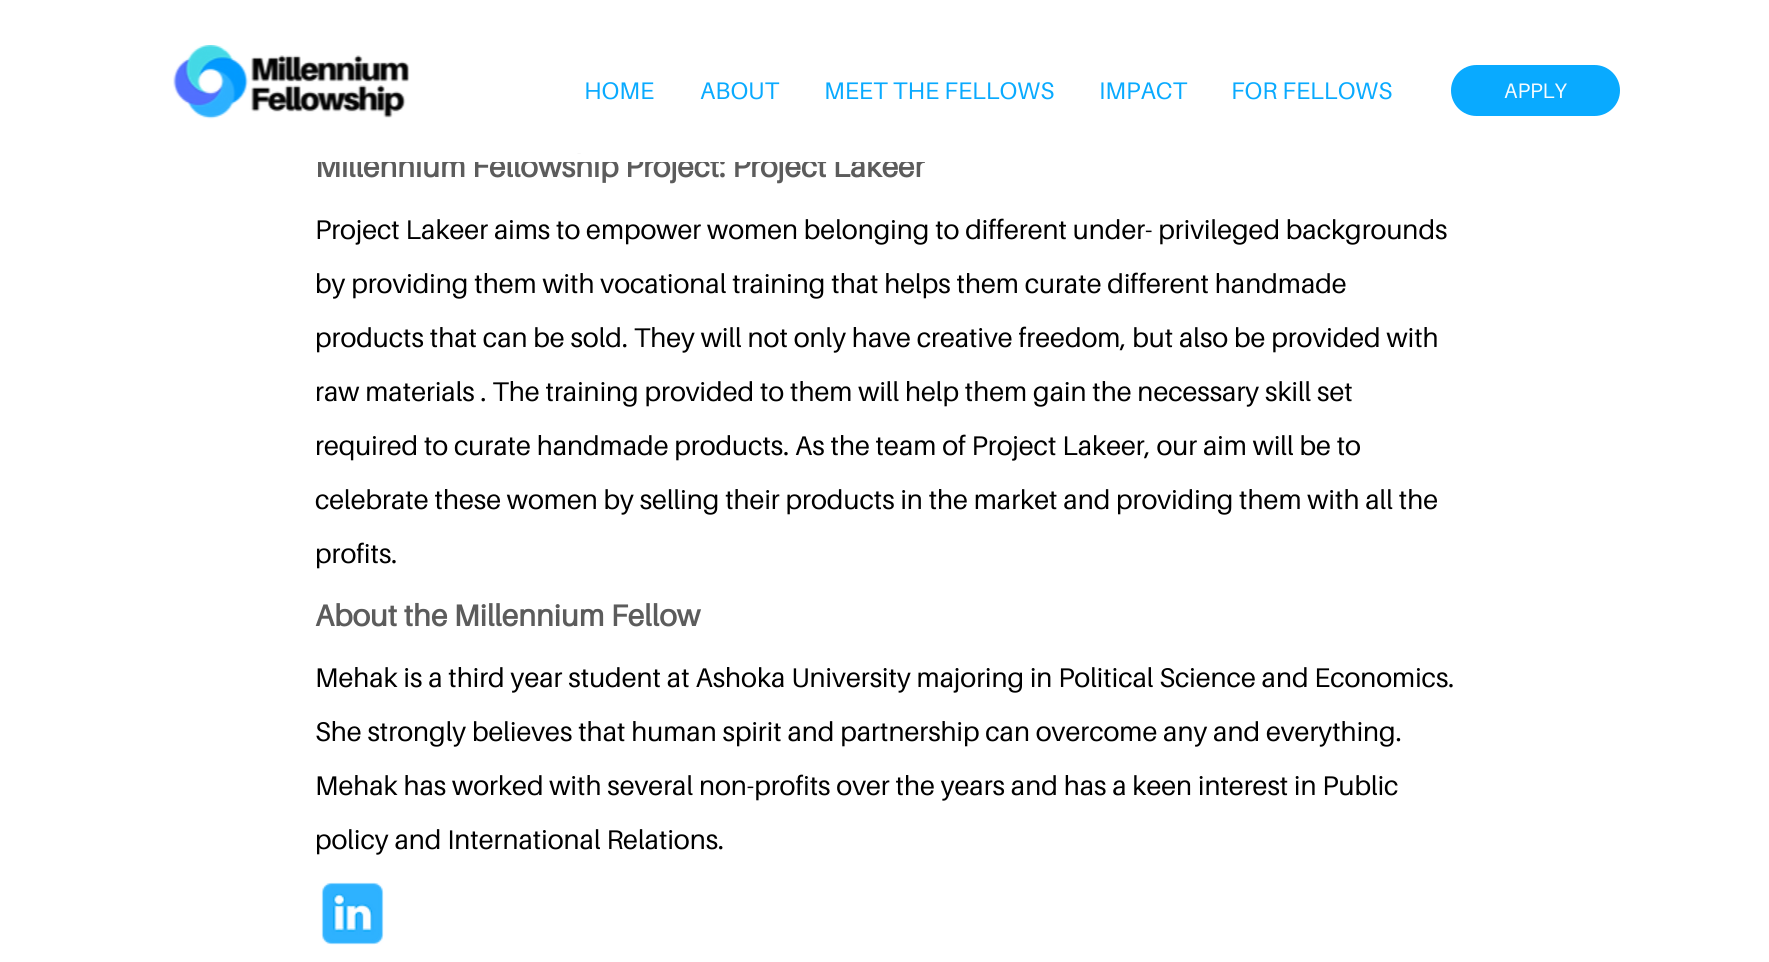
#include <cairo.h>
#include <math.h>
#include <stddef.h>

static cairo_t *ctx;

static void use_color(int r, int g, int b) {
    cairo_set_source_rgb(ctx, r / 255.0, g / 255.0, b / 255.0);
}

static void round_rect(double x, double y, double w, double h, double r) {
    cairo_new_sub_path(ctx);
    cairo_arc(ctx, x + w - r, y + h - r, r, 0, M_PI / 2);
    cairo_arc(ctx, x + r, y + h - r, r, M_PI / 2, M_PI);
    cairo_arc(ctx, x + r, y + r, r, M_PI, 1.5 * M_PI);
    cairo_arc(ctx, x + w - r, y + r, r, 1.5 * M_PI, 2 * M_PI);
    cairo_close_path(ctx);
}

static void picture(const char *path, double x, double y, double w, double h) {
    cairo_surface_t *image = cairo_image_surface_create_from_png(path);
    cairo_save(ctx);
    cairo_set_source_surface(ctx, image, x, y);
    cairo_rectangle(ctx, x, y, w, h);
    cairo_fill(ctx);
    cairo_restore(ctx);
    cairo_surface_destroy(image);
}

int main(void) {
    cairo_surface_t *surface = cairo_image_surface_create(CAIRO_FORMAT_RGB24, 1769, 962);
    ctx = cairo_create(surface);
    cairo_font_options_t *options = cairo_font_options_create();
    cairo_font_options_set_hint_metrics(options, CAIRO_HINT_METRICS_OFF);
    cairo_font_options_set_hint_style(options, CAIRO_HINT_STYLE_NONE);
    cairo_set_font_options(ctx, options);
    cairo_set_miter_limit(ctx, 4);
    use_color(255, 255, 255);
    cairo_paint(ctx);
    picture("img1.png", 173, 45, 237, 74);
    cairo_select_font_face(ctx, "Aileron", CAIRO_FONT_SLANT_NORMAL, CAIRO_FONT_WEIGHT_NORMAL);
    cairo_set_font_size(ctx, 24);
    use_color(9, 170, 255);
    cairo_move_to(ctx, 584, 99);
    cairo_show_text(ctx, "HOME");
    cairo_move_to(ctx, 700, 99);
    cairo_show_text(ctx, "ABOUT");
    cairo_move_to(ctx, 824, 99);
    cairo_show_text(ctx, "MEET THE FELLOWS");
    cairo_move_to(ctx, 1099, 99);
    cairo_show_text(ctx, "IMPACT");
    cairo_move_to(ctx, 1231, 99);
    cairo_show_text(ctx, "FOR FELLOWS");
    round_rect(1452.5, 66.5, 166, 48, 24);
    cairo_fill_preserve(ctx);
    cairo_set_line_width(ctx, 3);
    cairo_stroke(ctx);
    cairo_set_font_size(ctx, 21);
    use_color(245, 251, 255);
    cairo_move_to(ctx, 1504, 98);
    cairo_show_text(ctx, "APPLY");
    cairo_select_font_face(ctx, "Aileron", CAIRO_FONT_SLANT_NORMAL, CAIRO_FONT_WEIGHT_BOLD);
    cairo_set_font_size(ctx, 30);
    use_color(92, 92, 92);
    cairo_move_to(ctx, 315, 177);
    cairo_show_text(ctx, "Millennium Fellowship Project: Project Lakeer");
    use_color(255, 255, 255);
    cairo_rectangle(ctx, 318, 154, 607, 8);
    cairo_fill(ctx);
    cairo_select_font_face(ctx, "Aileron", CAIRO_FONT_SLANT_NORMAL, CAIRO_FONT_WEIGHT_NORMAL);
    cairo_set_font_size(ctx, 27);
    use_color(0, 0, 0);
    cairo_move_to(ctx, 315, 239);
    cairo_show_text(ctx, "Project Lakeer aims to empower women belonging to different under- privileged backgrounds");
    cairo_move_to(ctx, 315, 293);
    cairo_show_text(ctx, "by providing them with vocational training that helps them curate different handmade");
    cairo_move_to(ctx, 315, 347);
    cairo_show_text(ctx, "products that can be sold. They will not only have creative freedom, but also be provided with");
    cairo_move_to(ctx, 315, 401);
    cairo_show_text(ctx, "raw materials . The training provided to them will help them gain the necessary skill set");
    cairo_move_to(ctx, 315, 455);
    cairo_show_text(ctx, "required to curate handmade products. As the team of Project Lakeer, our aim will be to");
    cairo_move_to(ctx, 315, 509);
    cairo_show_text(ctx, "celebrate these women by selling their products in the market and providing them with all the");
    cairo_move_to(ctx, 315, 563);
    cairo_show_text(ctx, "profits.");
    cairo_select_font_face(ctx, "Aileron", CAIRO_FONT_SLANT_NORMAL, CAIRO_FONT_WEIGHT_BOLD);
    cairo_set_font_size(ctx, 30);
    use_color(92, 92, 92);
    cairo_move_to(ctx, 315, 626);
    cairo_show_text(ctx, "About the Millennium Fellow");
    cairo_select_font_face(ctx, "Aileron", CAIRO_FONT_SLANT_NORMAL, CAIRO_FONT_WEIGHT_NORMAL);
    cairo_set_font_size(ctx, 27);
    use_color(0, 0, 0);
    cairo_move_to(ctx, 315, 687);
    cairo_show_text(ctx, "Mehak is a third year student at Ashoka University majoring in Political Science and Economics.");
    cairo_move_to(ctx, 315, 741);
    cairo_show_text(ctx, "She strongly believes that human spirit and partnership can overcome any and everything.");
    cairo_move_to(ctx, 315, 795);
    cairo_show_text(ctx, "Mehak has worked with several non-profits over the years and has a keen interest in Public");
    cairo_move_to(ctx, 315, 849);
    cairo_show_text(ctx, "policy and International Relations.");
    picture("img2.png", 321, 882, 63, 63);
    cairo_surface_write_to_png(surface, "result.png");
    cairo_font_options_destroy(options);
    cairo_destroy(ctx);
    cairo_surface_destroy(surface);
    return 0;
}
